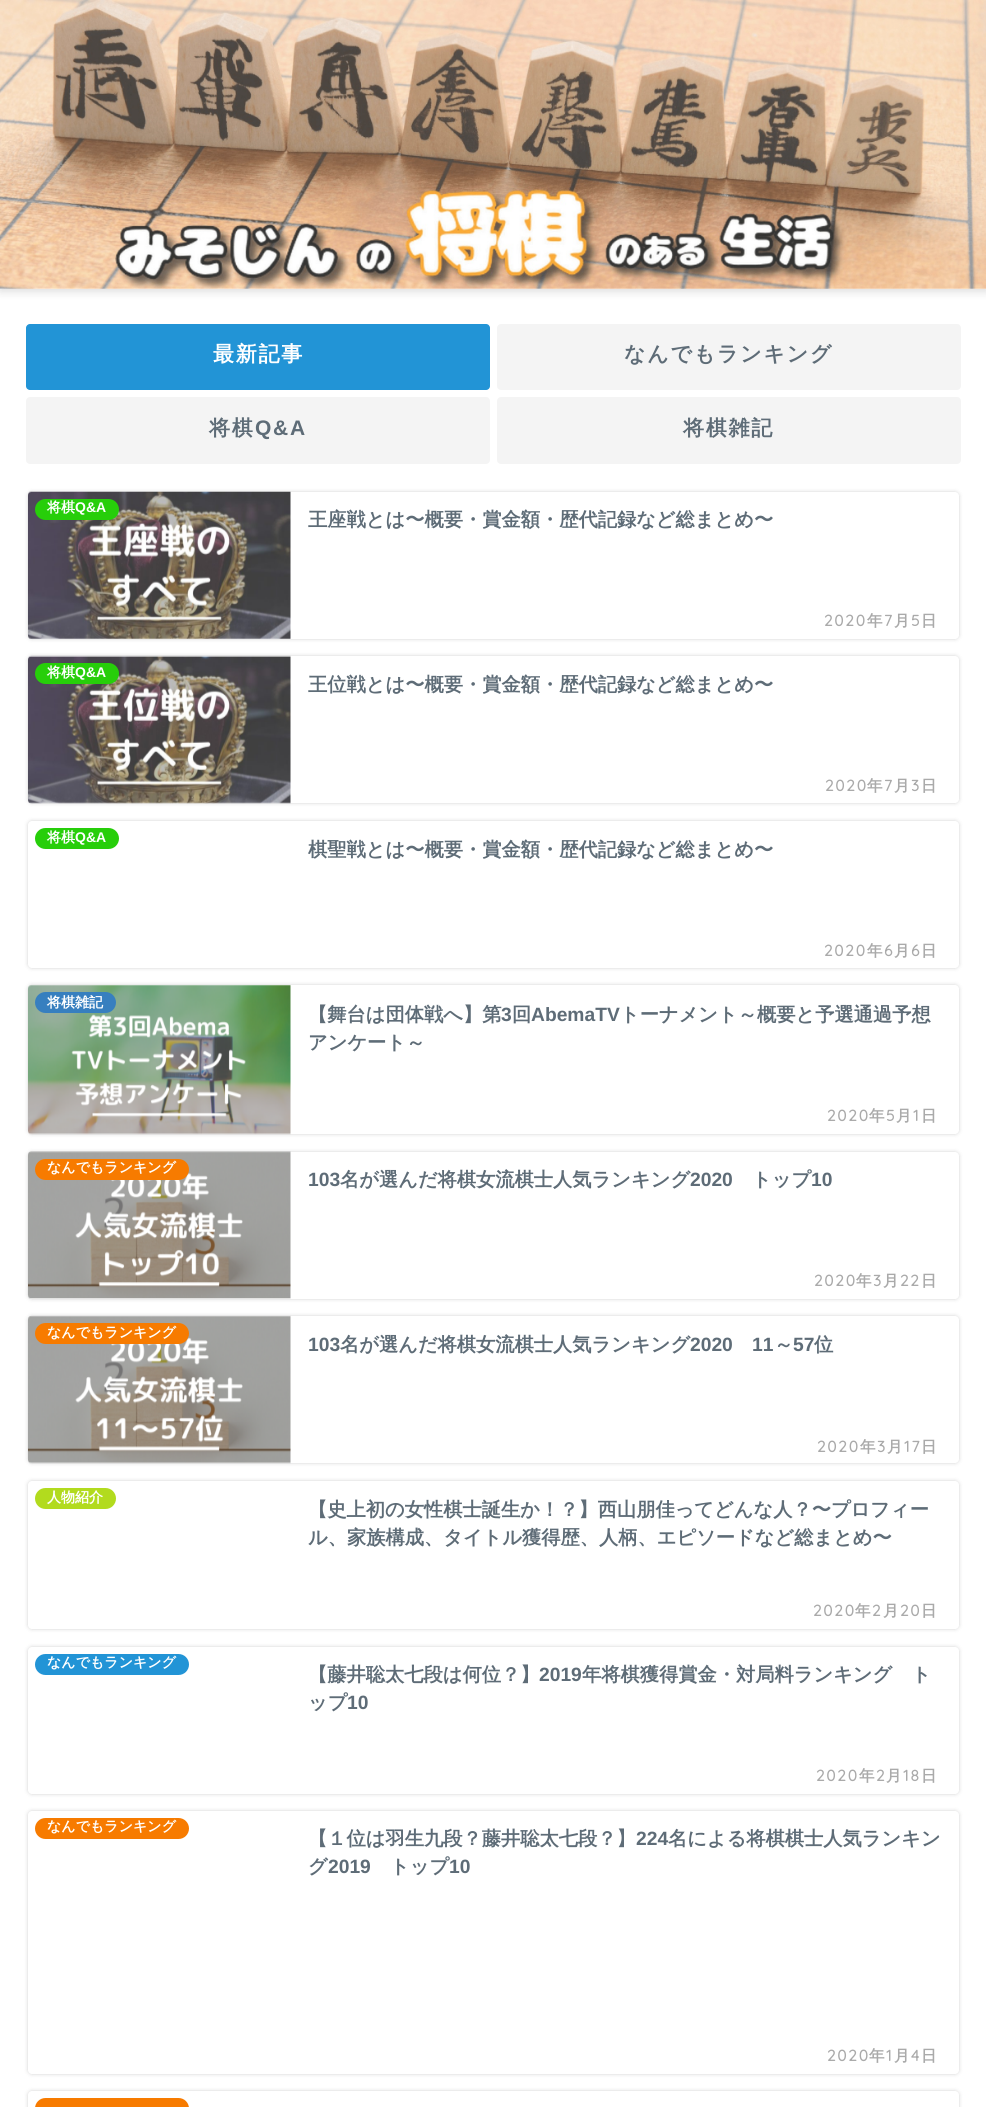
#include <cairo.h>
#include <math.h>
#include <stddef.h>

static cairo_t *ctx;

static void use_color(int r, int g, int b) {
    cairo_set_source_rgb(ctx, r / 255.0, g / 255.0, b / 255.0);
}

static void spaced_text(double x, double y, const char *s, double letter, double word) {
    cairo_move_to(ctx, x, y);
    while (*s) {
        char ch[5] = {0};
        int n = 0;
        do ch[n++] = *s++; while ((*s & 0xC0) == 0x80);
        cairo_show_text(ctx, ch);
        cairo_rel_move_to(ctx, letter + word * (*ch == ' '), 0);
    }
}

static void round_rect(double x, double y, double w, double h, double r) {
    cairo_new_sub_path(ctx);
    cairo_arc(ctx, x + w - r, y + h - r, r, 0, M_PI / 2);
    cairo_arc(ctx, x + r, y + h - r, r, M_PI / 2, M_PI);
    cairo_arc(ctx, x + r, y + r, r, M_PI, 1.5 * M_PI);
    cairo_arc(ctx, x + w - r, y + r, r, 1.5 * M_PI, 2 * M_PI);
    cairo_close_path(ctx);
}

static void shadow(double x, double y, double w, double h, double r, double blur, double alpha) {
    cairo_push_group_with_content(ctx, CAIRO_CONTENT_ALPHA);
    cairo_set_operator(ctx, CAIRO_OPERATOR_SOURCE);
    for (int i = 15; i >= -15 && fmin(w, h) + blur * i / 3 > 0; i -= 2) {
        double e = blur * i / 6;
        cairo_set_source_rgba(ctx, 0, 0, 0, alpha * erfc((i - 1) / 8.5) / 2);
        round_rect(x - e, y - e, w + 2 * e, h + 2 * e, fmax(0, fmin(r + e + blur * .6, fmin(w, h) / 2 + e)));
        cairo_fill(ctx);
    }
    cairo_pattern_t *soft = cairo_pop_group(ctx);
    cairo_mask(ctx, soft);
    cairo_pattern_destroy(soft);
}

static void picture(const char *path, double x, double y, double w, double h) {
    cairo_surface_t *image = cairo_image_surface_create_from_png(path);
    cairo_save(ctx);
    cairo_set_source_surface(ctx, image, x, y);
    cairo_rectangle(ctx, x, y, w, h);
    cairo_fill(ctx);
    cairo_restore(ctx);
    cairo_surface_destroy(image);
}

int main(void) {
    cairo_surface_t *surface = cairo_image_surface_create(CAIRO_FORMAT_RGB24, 986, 2107);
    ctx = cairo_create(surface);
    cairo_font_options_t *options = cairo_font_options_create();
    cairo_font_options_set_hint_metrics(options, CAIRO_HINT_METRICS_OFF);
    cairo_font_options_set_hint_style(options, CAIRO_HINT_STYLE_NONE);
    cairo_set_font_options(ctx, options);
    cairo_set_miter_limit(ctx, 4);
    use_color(255, 255, 255);
    cairo_paint(ctx);
    cairo_save(ctx);
    cairo_set_fill_rule(ctx, CAIRO_FILL_RULE_EVEN_ODD);
    cairo_new_path(ctx);
    cairo_move_to(ctx, 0, 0);
    cairo_line_to(ctx, 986, 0);
    cairo_line_to(ctx, 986, 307);
    cairo_line_to(ctx, 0, 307);
    cairo_close_path(ctx);
    cairo_move_to(ctx, 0, 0);
    cairo_line_to(ctx, 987, 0);
    cairo_line_to(ctx, 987, 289);
    cairo_line_to(ctx, 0, 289);
    cairo_close_path(ctx);
    cairo_clip(ctx);
    use_color(0, 0, 0);
    shadow(0, 2, 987, 289, 0, 5, 0.15);
    cairo_restore(ctx);
    picture("img1.png", 0, 0, 986, 289);
    use_color(34, 148, 214);
    round_rect(26, 324, 464, 66, 4);
    cairo_fill(ctx);
    cairo_select_font_face(ctx, "WenQuanYi Zen Hei", CAIRO_FONT_SLANT_NORMAL, CAIRO_FONT_WEIGHT_BOLD);
    cairo_set_font_size(ctx, 21);
    use_color(255, 255, 255);
    spaced_text(213, 361, "最新記事", 1.75, 0);
    use_color(244, 244, 244);
    round_rect(497, 324, 464, 66, 4);
    cairo_fill(ctx);
    use_color(94, 108, 119);
    spaced_text(624, 361, "なんでもランキング", 1.75, 0);
    use_color(244, 244, 244);
    round_rect(26, 397, 464, 67, 4);
    cairo_fill(ctx);
    use_color(94, 108, 119);
    spaced_text(209, 435, "将棋", 1.75, 0);
    cairo_select_font_face(ctx, "Liberation Sans", CAIRO_FONT_SLANT_NORMAL, CAIRO_FONT_WEIGHT_BOLD);
    spaced_text(255, 435, "Q&A", 1.75, 0);
    use_color(244, 244, 244);
    round_rect(497, 397, 464, 67, 4);
    cairo_fill(ctx);
    cairo_select_font_face(ctx, "WenQuanYi Zen Hei", CAIRO_FONT_SLANT_NORMAL, CAIRO_FONT_WEIGHT_BOLD);
    use_color(94, 108, 119);
    spaced_text(683, 435, "将棋雑記", 1.75, 0);
    use_color(0, 0, 0);
    shadow(28, 492, 931, 147, 4, 2, 0.18);
    use_color(255, 255, 255);
    round_rect(28, 492, 931, 147, 4);
    cairo_fill(ctx);
    picture("img2.png", 28, 491, 263, 148);
    use_color(39, 206, 10);
    round_rect(35, 499, 84, 21, 10.5);
    cairo_fill(ctx);
    cairo_set_font_size(ctx, 14);
    use_color(255, 255, 255);
    cairo_move_to(ctx, 47, 512);
    cairo_show_text(ctx, "将棋");
    cairo_select_font_face(ctx, "Liberation Sans", CAIRO_FONT_SLANT_NORMAL, CAIRO_FONT_WEIGHT_BOLD);
    cairo_move_to(ctx, 75, 512);
    cairo_show_text(ctx, "Q&A");
    cairo_select_font_face(ctx, "WenQuanYi Zen Hei", CAIRO_FONT_SLANT_NORMAL, CAIRO_FONT_WEIGHT_BOLD);
    cairo_set_font_size(ctx, 19.25);
    use_color(94, 108, 119);
    cairo_move_to(ctx, 308, 526);
    cairo_show_text(ctx, "王座戦とは〜概要・賞金額・歴代記録など総まとめ〜");
    cairo_select_font_face(ctx, "Quicksand", CAIRO_FONT_SLANT_NORMAL, CAIRO_FONT_WEIGHT_BOLD);
    cairo_set_font_size(ctx, 15.5);
    use_color(170, 170, 170);
    spaced_text(824, 626, "2020", 1.75, 0);
    cairo_select_font_face(ctx, "WenQuanYi Zen Hei", CAIRO_FONT_SLANT_NORMAL, CAIRO_FONT_WEIGHT_BOLD);
    spaced_text(867, 626, "年", 1.75, 0);
    cairo_select_font_face(ctx, "Quicksand", CAIRO_FONT_SLANT_NORMAL, CAIRO_FONT_WEIGHT_BOLD);
    spaced_text(884, 626, "7", 1.75, 0);
    cairo_select_font_face(ctx, "WenQuanYi Zen Hei", CAIRO_FONT_SLANT_NORMAL, CAIRO_FONT_WEIGHT_BOLD);
    spaced_text(894, 626, "月", 1.75, 0);
    cairo_select_font_face(ctx, "Quicksand", CAIRO_FONT_SLANT_NORMAL, CAIRO_FONT_WEIGHT_BOLD);
    spaced_text(911, 626, "5", 1.75, 0);
    cairo_select_font_face(ctx, "WenQuanYi Zen Hei", CAIRO_FONT_SLANT_NORMAL, CAIRO_FONT_WEIGHT_BOLD);
    spaced_text(921, 626, "日", 1.75, 0);
    use_color(0, 0, 0);
    shadow(28, 656, 931, 147, 4, 2, 0.18);
    use_color(255, 255, 255);
    round_rect(28, 656, 931, 147, 4);
    cairo_fill(ctx);
    picture("img3.png", 28, 655, 263, 149);
    use_color(39, 206, 10);
    round_rect(35, 663, 84, 21, 10.5);
    cairo_fill(ctx);
    cairo_set_font_size(ctx, 14);
    use_color(255, 255, 255);
    cairo_move_to(ctx, 47, 677);
    cairo_show_text(ctx, "将棋");
    cairo_select_font_face(ctx, "Liberation Sans", CAIRO_FONT_SLANT_NORMAL, CAIRO_FONT_WEIGHT_BOLD);
    cairo_move_to(ctx, 75, 677);
    cairo_show_text(ctx, "Q&A");
    cairo_select_font_face(ctx, "WenQuanYi Zen Hei", CAIRO_FONT_SLANT_NORMAL, CAIRO_FONT_WEIGHT_BOLD);
    cairo_set_font_size(ctx, 19.25);
    use_color(94, 108, 119);
    cairo_move_to(ctx, 308, 691);
    cairo_show_text(ctx, "王位戦とは〜概要・賞金額・歴代記録など総まとめ〜");
    cairo_select_font_face(ctx, "Quicksand", CAIRO_FONT_SLANT_NORMAL, CAIRO_FONT_WEIGHT_BOLD);
    cairo_set_font_size(ctx, 15.5);
    use_color(170, 170, 170);
    spaced_text(825, 791, "2020", 1.75, 0);
    cairo_select_font_face(ctx, "WenQuanYi Zen Hei", CAIRO_FONT_SLANT_NORMAL, CAIRO_FONT_WEIGHT_BOLD);
    spaced_text(867, 791, "年", 1.75, 0);
    cairo_select_font_face(ctx, "Quicksand", CAIRO_FONT_SLANT_NORMAL, CAIRO_FONT_WEIGHT_BOLD);
    spaced_text(884, 791, "7", 1.75, 0);
    cairo_select_font_face(ctx, "WenQuanYi Zen Hei", CAIRO_FONT_SLANT_NORMAL, CAIRO_FONT_WEIGHT_BOLD);
    spaced_text(894, 791, "月", 1.75, 0);
    cairo_select_font_face(ctx, "Quicksand", CAIRO_FONT_SLANT_NORMAL, CAIRO_FONT_WEIGHT_BOLD);
    spaced_text(911, 791, "3", 1.75, 0);
    cairo_select_font_face(ctx, "WenQuanYi Zen Hei", CAIRO_FONT_SLANT_NORMAL, CAIRO_FONT_WEIGHT_BOLD);
    spaced_text(921, 791, "日", 1.75, 0);
    use_color(0, 0, 0);
    shadow(28, 821, 931, 147, 4, 2, 0.18);
    use_color(255, 255, 255);
    round_rect(28, 821, 931, 147, 4);
    cairo_fill(ctx);
    use_color(39, 206, 10);
    round_rect(35, 828, 84, 21, 10.5);
    cairo_fill(ctx);
    cairo_set_font_size(ctx, 14);
    use_color(255, 255, 255);
    cairo_move_to(ctx, 47, 842);
    cairo_show_text(ctx, "将棋");
    cairo_select_font_face(ctx, "Liberation Sans", CAIRO_FONT_SLANT_NORMAL, CAIRO_FONT_WEIGHT_BOLD);
    cairo_move_to(ctx, 75, 842);
    cairo_show_text(ctx, "Q&A");
    cairo_select_font_face(ctx, "WenQuanYi Zen Hei", CAIRO_FONT_SLANT_NORMAL, CAIRO_FONT_WEIGHT_BOLD);
    cairo_set_font_size(ctx, 19.25);
    use_color(94, 108, 119);
    cairo_move_to(ctx, 308, 856);
    cairo_show_text(ctx, "棋聖戦とは〜概要・賞金額・歴代記録など総まとめ〜");
    cairo_select_font_face(ctx, "Quicksand", CAIRO_FONT_SLANT_NORMAL, CAIRO_FONT_WEIGHT_BOLD);
    cairo_set_font_size(ctx, 15.5);
    use_color(170, 170, 170);
    spaced_text(824, 956, "2020", 1.75, 0);
    cairo_select_font_face(ctx, "WenQuanYi Zen Hei", CAIRO_FONT_SLANT_NORMAL, CAIRO_FONT_WEIGHT_BOLD);
    spaced_text(867, 956, "年", 1.75, 0);
    cairo_select_font_face(ctx, "Quicksand", CAIRO_FONT_SLANT_NORMAL, CAIRO_FONT_WEIGHT_BOLD);
    spaced_text(884, 956, "6", 1.75, 0);
    cairo_select_font_face(ctx, "WenQuanYi Zen Hei", CAIRO_FONT_SLANT_NORMAL, CAIRO_FONT_WEIGHT_BOLD);
    spaced_text(894, 956, "月", 1.75, 0);
    cairo_select_font_face(ctx, "Quicksand", CAIRO_FONT_SLANT_NORMAL, CAIRO_FONT_WEIGHT_BOLD);
    spaced_text(911, 956, "6", 1.75, 0);
    cairo_select_font_face(ctx, "WenQuanYi Zen Hei", CAIRO_FONT_SLANT_NORMAL, CAIRO_FONT_WEIGHT_BOLD);
    spaced_text(921, 956, "日", 1.75, 0);
    use_color(0, 0, 0);
    shadow(28, 985, 931, 149, 4, 2, 0.18);
    use_color(255, 255, 255);
    round_rect(28, 985, 931, 149, 4);
    cairo_fill(ctx);
    picture("img4.png", 28, 985, 263, 150);
    use_color(55, 127, 191);
    round_rect(35, 992, 81, 21, 10.5);
    cairo_fill(ctx);
    cairo_set_font_size(ctx, 14);
    use_color(255, 255, 255);
    cairo_move_to(ctx, 47, 1007);
    cairo_show_text(ctx, "将棋雑記");
    cairo_set_font_size(ctx, 19.25);
    use_color(94, 108, 119);
    cairo_move_to(ctx, 308, 1021);
    cairo_show_text(ctx, "【舞台は団体戦へ】第");
    cairo_select_font_face(ctx, "Liberation Sans", CAIRO_FONT_SLANT_NORMAL, CAIRO_FONT_WEIGHT_BOLD);
    cairo_move_to(ctx, 501, 1021);
    cairo_show_text(ctx, "3");
    cairo_select_font_face(ctx, "WenQuanYi Zen Hei", CAIRO_FONT_SLANT_NORMAL, CAIRO_FONT_WEIGHT_BOLD);
    cairo_move_to(ctx, 512, 1021);
    cairo_show_text(ctx, "回");
    cairo_select_font_face(ctx, "Liberation Sans", CAIRO_FONT_SLANT_NORMAL, CAIRO_FONT_WEIGHT_BOLD);
    cairo_move_to(ctx, 531, 1021);
    cairo_show_text(ctx, "AbemaTV");
    cairo_select_font_face(ctx, "WenQuanYi Zen Hei", CAIRO_FONT_SLANT_NORMAL, CAIRO_FONT_WEIGHT_BOLD);
    cairo_move_to(ctx, 620, 1021);
    cairo_show_text(ctx, "トーナメント～概要と予選通過予想");
    cairo_move_to(ctx, 308, 1049);
    cairo_show_text(ctx, "アンケート～");
    cairo_select_font_face(ctx, "Quicksand", CAIRO_FONT_SLANT_NORMAL, CAIRO_FONT_WEIGHT_BOLD);
    cairo_set_font_size(ctx, 15.5);
    use_color(170, 170, 170);
    spaced_text(827, 1121, "2020", 1.75, 0);
    cairo_select_font_face(ctx, "WenQuanYi Zen Hei", CAIRO_FONT_SLANT_NORMAL, CAIRO_FONT_WEIGHT_BOLD);
    spaced_text(869, 1121, "年", 1.75, 0);
    cairo_select_font_face(ctx, "Quicksand", CAIRO_FONT_SLANT_NORMAL, CAIRO_FONT_WEIGHT_BOLD);
    spaced_text(886, 1121, "5", 1.75, 0);
    cairo_select_font_face(ctx, "WenQuanYi Zen Hei", CAIRO_FONT_SLANT_NORMAL, CAIRO_FONT_WEIGHT_BOLD);
    spaced_text(896, 1121, "月", 1.75, 0);
    cairo_select_font_face(ctx, "Quicksand", CAIRO_FONT_SLANT_NORMAL, CAIRO_FONT_WEIGHT_BOLD);
    spaced_text(913, 1121, "1", 1.75, 0);
    cairo_select_font_face(ctx, "WenQuanYi Zen Hei", CAIRO_FONT_SLANT_NORMAL, CAIRO_FONT_WEIGHT_BOLD);
    spaced_text(921, 1121, "日", 1.75, 0);
    use_color(0, 0, 0);
    shadow(28, 1152, 931, 147, 4, 2, 0.18);
    use_color(255, 255, 255);
    round_rect(28, 1152, 931, 147, 4);
    cairo_fill(ctx);
    picture("img5.png", 28, 1151, 263, 148);
    use_color(247, 123, 0);
    round_rect(35, 1159, 154, 21, 10.5);
    cairo_fill(ctx);
    cairo_set_font_size(ctx, 14);
    use_color(255, 255, 255);
    cairo_move_to(ctx, 47, 1172);
    cairo_show_text(ctx, "なんでもランキング");
    cairo_select_font_face(ctx, "Liberation Sans", CAIRO_FONT_SLANT_NORMAL, CAIRO_FONT_WEIGHT_BOLD);
    cairo_set_font_size(ctx, 19.25);
    use_color(94, 108, 119);
    cairo_move_to(ctx, 308, 1186);
    cairo_show_text(ctx, "103");
    cairo_select_font_face(ctx, "WenQuanYi Zen Hei", CAIRO_FONT_SLANT_NORMAL, CAIRO_FONT_WEIGHT_BOLD);
    cairo_move_to(ctx, 340, 1186);
    cairo_show_text(ctx, "名が選んだ将棋女流棋士人気ランキング");
    cairo_select_font_face(ctx, "Liberation Sans", CAIRO_FONT_SLANT_NORMAL, CAIRO_FONT_WEIGHT_BOLD);
    cairo_move_to(ctx, 690, 1186);
    cairo_show_text(ctx, "2020");
    cairo_select_font_face(ctx, "WenQuanYi Zen Hei", CAIRO_FONT_SLANT_NORMAL, CAIRO_FONT_WEIGHT_BOLD);
    cairo_move_to(ctx, 752, 1186);
    cairo_show_text(ctx, "トップ");
    cairo_select_font_face(ctx, "Liberation Sans", CAIRO_FONT_SLANT_NORMAL, CAIRO_FONT_WEIGHT_BOLD);
    cairo_move_to(ctx, 811, 1186);
    cairo_show_text(ctx, "10");
    cairo_select_font_face(ctx, "Quicksand", CAIRO_FONT_SLANT_NORMAL, CAIRO_FONT_WEIGHT_BOLD);
    cairo_set_font_size(ctx, 15.5);
    use_color(170, 170, 170);
    spaced_text(814, 1286, "2020", 1.75, 0);
    cairo_select_font_face(ctx, "WenQuanYi Zen Hei", CAIRO_FONT_SLANT_NORMAL, CAIRO_FONT_WEIGHT_BOLD);
    spaced_text(856, 1286, "年", 1.75, 0);
    cairo_select_font_face(ctx, "Quicksand", CAIRO_FONT_SLANT_NORMAL, CAIRO_FONT_WEIGHT_BOLD);
    spaced_text(873, 1286, "3", 1.75, 0);
    cairo_select_font_face(ctx, "WenQuanYi Zen Hei", CAIRO_FONT_SLANT_NORMAL, CAIRO_FONT_WEIGHT_BOLD);
    spaced_text(883, 1286, "月", 1.75, 0);
    cairo_select_font_face(ctx, "Quicksand", CAIRO_FONT_SLANT_NORMAL, CAIRO_FONT_WEIGHT_BOLD);
    spaced_text(900, 1286, "22", 1.75, 0);
    cairo_select_font_face(ctx, "WenQuanYi Zen Hei", CAIRO_FONT_SLANT_NORMAL, CAIRO_FONT_WEIGHT_BOLD);
    spaced_text(921, 1286, "日", 1.75, 0);
    use_color(0, 0, 0);
    shadow(28, 1316, 931, 147, 4, 2, 0.18);
    use_color(255, 255, 255);
    round_rect(28, 1316, 931, 147, 4);
    cairo_fill(ctx);
    picture("img6.png", 28, 1315, 263, 149);
    use_color(247, 123, 0);
    round_rect(35, 1323, 154, 21, 10.5);
    cairo_fill(ctx);
    cairo_set_font_size(ctx, 14);
    use_color(255, 255, 255);
    cairo_move_to(ctx, 47, 1337);
    cairo_show_text(ctx, "なんでもランキング");
    cairo_select_font_face(ctx, "Liberation Sans", CAIRO_FONT_SLANT_NORMAL, CAIRO_FONT_WEIGHT_BOLD);
    cairo_set_font_size(ctx, 19.25);
    use_color(94, 108, 119);
    cairo_move_to(ctx, 308, 1351);
    cairo_show_text(ctx, "103");
    cairo_select_font_face(ctx, "WenQuanYi Zen Hei", CAIRO_FONT_SLANT_NORMAL, CAIRO_FONT_WEIGHT_BOLD);
    cairo_move_to(ctx, 340, 1351);
    cairo_show_text(ctx, "名が選んだ将棋女流棋士人気ランキング");
    cairo_select_font_face(ctx, "Liberation Sans", CAIRO_FONT_SLANT_NORMAL, CAIRO_FONT_WEIGHT_BOLD);
    cairo_move_to(ctx, 690, 1351);
    cairo_show_text(ctx, "2020");
    cairo_move_to(ctx, 752, 1351);
    cairo_show_text(ctx, "11");
    cairo_select_font_face(ctx, "WenQuanYi Zen Hei", CAIRO_FONT_SLANT_NORMAL, CAIRO_FONT_WEIGHT_BOLD);
    cairo_move_to(ctx, 774, 1351);
    cairo_show_text(ctx, "～");
    cairo_select_font_face(ctx, "Liberation Sans", CAIRO_FONT_SLANT_NORMAL, CAIRO_FONT_WEIGHT_BOLD);
    cairo_move_to(ctx, 793, 1351);
    cairo_show_text(ctx, "57");
    cairo_select_font_face(ctx, "WenQuanYi Zen Hei", CAIRO_FONT_SLANT_NORMAL, CAIRO_FONT_WEIGHT_BOLD);
    cairo_move_to(ctx, 814, 1351);
    cairo_show_text(ctx, "位");
    cairo_select_font_face(ctx, "Quicksand", CAIRO_FONT_SLANT_NORMAL, CAIRO_FONT_WEIGHT_BOLD);
    cairo_set_font_size(ctx, 15.5);
    use_color(170, 170, 170);
    spaced_text(817, 1452, "2020", 1.75, 0);
    cairo_select_font_face(ctx, "WenQuanYi Zen Hei", CAIRO_FONT_SLANT_NORMAL, CAIRO_FONT_WEIGHT_BOLD);
    spaced_text(860, 1452, "年", 1.75, 0);
    cairo_select_font_face(ctx, "Quicksand", CAIRO_FONT_SLANT_NORMAL, CAIRO_FONT_WEIGHT_BOLD);
    spaced_text(877, 1452, "3", 1.75, 0);
    cairo_select_font_face(ctx, "WenQuanYi Zen Hei", CAIRO_FONT_SLANT_NORMAL, CAIRO_FONT_WEIGHT_BOLD);
    spaced_text(887, 1452, "月", 1.75, 0);
    cairo_select_font_face(ctx, "Quicksand", CAIRO_FONT_SLANT_NORMAL, CAIRO_FONT_WEIGHT_BOLD);
    spaced_text(904, 1452, "17", 1.75, 0);
    cairo_select_font_face(ctx, "WenQuanYi Zen Hei", CAIRO_FONT_SLANT_NORMAL, CAIRO_FONT_WEIGHT_BOLD);
    spaced_text(921, 1452, "日", 1.75, 0);
    use_color(0, 0, 0);
    shadow(28, 1481, 931, 148, 4, 2, 0.18);
    use_color(255, 255, 255);
    round_rect(28, 1481, 931, 148, 4);
    cairo_fill(ctx);
    use_color(178, 219, 30);
    round_rect(35, 1488, 81, 21, 10.5);
    cairo_fill(ctx);
    cairo_set_font_size(ctx, 14);
    use_color(255, 255, 255);
    cairo_move_to(ctx, 47, 1502);
    cairo_show_text(ctx, "人物紹介");
    cairo_set_font_size(ctx, 19.25);
    use_color(94, 108, 119);
    cairo_move_to(ctx, 308, 1516);
    cairo_show_text(ctx, "【史上初の女性棋士誕生か！？】西山朋佳ってどんな人？〜プロフィー");
    cairo_move_to(ctx, 308, 1544);
    cairo_show_text(ctx, "ル、家族構成、タイトル獲得歴、人柄、エピソードなど総まとめ〜");
    cairo_select_font_face(ctx, "Quicksand", CAIRO_FONT_SLANT_NORMAL, CAIRO_FONT_WEIGHT_BOLD);
    cairo_set_font_size(ctx, 15.5);
    use_color(170, 170, 170);
    spaced_text(813, 1616, "2020", 1.75, 0);
    cairo_select_font_face(ctx, "WenQuanYi Zen Hei", CAIRO_FONT_SLANT_NORMAL, CAIRO_FONT_WEIGHT_BOLD);
    spaced_text(855, 1616, "年", 1.75, 0);
    cairo_select_font_face(ctx, "Quicksand", CAIRO_FONT_SLANT_NORMAL, CAIRO_FONT_WEIGHT_BOLD);
    spaced_text(872, 1616, "2", 1.75, 0);
    cairo_select_font_face(ctx, "WenQuanYi Zen Hei", CAIRO_FONT_SLANT_NORMAL, CAIRO_FONT_WEIGHT_BOLD);
    spaced_text(883, 1616, "月", 1.75, 0);
    cairo_select_font_face(ctx, "Quicksand", CAIRO_FONT_SLANT_NORMAL, CAIRO_FONT_WEIGHT_BOLD);
    spaced_text(900, 1616, "20", 1.75, 0);
    cairo_select_font_face(ctx, "WenQuanYi Zen Hei", CAIRO_FONT_SLANT_NORMAL, CAIRO_FONT_WEIGHT_BOLD);
    spaced_text(921, 1616, "日", 1.75, 0);
    use_color(0, 0, 0);
    shadow(28, 1647, 931, 147, 4, 2, 0.18);
    use_color(255, 255, 255);
    round_rect(28, 1647, 931, 147, 4);
    cairo_fill(ctx);
    use_color(34, 148, 214);
    round_rect(35, 1654, 154, 21, 10.5);
    cairo_fill(ctx);
    cairo_set_font_size(ctx, 14);
    use_color(255, 255, 255);
    cairo_move_to(ctx, 47, 1667);
    cairo_show_text(ctx, "なんでもランキング");
    cairo_set_font_size(ctx, 19.25);
    use_color(94, 108, 119);
    cairo_move_to(ctx, 308, 1681);
    cairo_show_text(ctx, "【藤井聡太七段は何位？】");
    cairo_select_font_face(ctx, "Liberation Sans", CAIRO_FONT_SLANT_NORMAL, CAIRO_FONT_WEIGHT_BOLD);
    cairo_move_to(ctx, 539, 1681);
    cairo_show_text(ctx, "2019");
    cairo_select_font_face(ctx, "WenQuanYi Zen Hei", CAIRO_FONT_SLANT_NORMAL, CAIRO_FONT_WEIGHT_BOLD);
    cairo_move_to(ctx, 582, 1681);
    cairo_show_text(ctx, "年将棋獲得賞金・対局料ランキング　ト");
    cairo_move_to(ctx, 308, 1709);
    cairo_show_text(ctx, "ップ");
    cairo_select_font_face(ctx, "Liberation Sans", CAIRO_FONT_SLANT_NORMAL, CAIRO_FONT_WEIGHT_BOLD);
    cairo_move_to(ctx, 347, 1709);
    cairo_show_text(ctx, "10");
    cairo_select_font_face(ctx, "Quicksand", CAIRO_FONT_SLANT_NORMAL, CAIRO_FONT_WEIGHT_BOLD);
    cairo_set_font_size(ctx, 15.5);
    use_color(170, 170, 170);
    spaced_text(816, 1781, "2020", 1.75, 0);
    cairo_select_font_face(ctx, "WenQuanYi Zen Hei", CAIRO_FONT_SLANT_NORMAL, CAIRO_FONT_WEIGHT_BOLD);
    spaced_text(859, 1781, "年", 1.75, 0);
    cairo_select_font_face(ctx, "Quicksand", CAIRO_FONT_SLANT_NORMAL, CAIRO_FONT_WEIGHT_BOLD);
    spaced_text(876, 1781, "2", 1.75, 0);
    cairo_select_font_face(ctx, "WenQuanYi Zen Hei", CAIRO_FONT_SLANT_NORMAL, CAIRO_FONT_WEIGHT_BOLD);
    spaced_text(886, 1781, "月", 1.75, 0);
    cairo_select_font_face(ctx, "Quicksand", CAIRO_FONT_SLANT_NORMAL, CAIRO_FONT_WEIGHT_BOLD);
    spaced_text(903, 1781, "18", 1.75, 0);
    cairo_select_font_face(ctx, "WenQuanYi Zen Hei", CAIRO_FONT_SLANT_NORMAL, CAIRO_FONT_WEIGHT_BOLD);
    spaced_text(921, 1781, "日", 1.75, 0);
    use_color(0, 0, 0);
    shadow(28, 1811, 931, 263, 4, 2, 0.18);
    use_color(255, 255, 255);
    round_rect(28, 1811, 931, 263, 4);
    cairo_fill(ctx);
    use_color(247, 123, 0);
    round_rect(35, 1818, 154, 21, 10.5);
    cairo_fill(ctx);
    cairo_set_font_size(ctx, 14);
    use_color(255, 255, 255);
    cairo_move_to(ctx, 47, 1831);
    cairo_show_text(ctx, "なんでもランキング");
    cairo_set_font_size(ctx, 19.25);
    use_color(94, 108, 119);
    cairo_move_to(ctx, 308, 1845);
    cairo_show_text(ctx, "【１位は羽生九段？藤井聡太七段？】");
    cairo_select_font_face(ctx, "Liberation Sans", CAIRO_FONT_SLANT_NORMAL, CAIRO_FONT_WEIGHT_BOLD);
    cairo_move_to(ctx, 636, 1845);
    cairo_show_text(ctx, "224");
    cairo_select_font_face(ctx, "WenQuanYi Zen Hei", CAIRO_FONT_SLANT_NORMAL, CAIRO_FONT_WEIGHT_BOLD);
    cairo_move_to(ctx, 668, 1845);
    cairo_show_text(ctx, "名による将棋棋士人気ランキン");
    cairo_move_to(ctx, 308, 1873);
    cairo_show_text(ctx, "グ");
    cairo_select_font_face(ctx, "Liberation Sans", CAIRO_FONT_SLANT_NORMAL, CAIRO_FONT_WEIGHT_BOLD);
    cairo_move_to(ctx, 328, 1873);
    cairo_show_text(ctx, "2019");
    cairo_select_font_face(ctx, "WenQuanYi Zen Hei", CAIRO_FONT_SLANT_NORMAL, CAIRO_FONT_WEIGHT_BOLD);
    cairo_move_to(ctx, 390, 1873);
    cairo_show_text(ctx, "トップ");
    cairo_select_font_face(ctx, "Liberation Sans", CAIRO_FONT_SLANT_NORMAL, CAIRO_FONT_WEIGHT_BOLD);
    cairo_move_to(ctx, 449, 1873);
    cairo_show_text(ctx, "10");
    cairo_select_font_face(ctx, "Quicksand", CAIRO_FONT_SLANT_NORMAL, CAIRO_FONT_WEIGHT_BOLD);
    cairo_set_font_size(ctx, 15.5);
    use_color(170, 170, 170);
    spaced_text(827, 2061, "2020", 1.75, 0);
    cairo_select_font_face(ctx, "WenQuanYi Zen Hei", CAIRO_FONT_SLANT_NORMAL, CAIRO_FONT_WEIGHT_BOLD);
    spaced_text(869, 2061, "年", 1.75, 0);
    cairo_select_font_face(ctx, "Quicksand", CAIRO_FONT_SLANT_NORMAL, CAIRO_FONT_WEIGHT_BOLD);
    spaced_text(886, 2061, "1", 1.75, 0);
    cairo_select_font_face(ctx, "WenQuanYi Zen Hei", CAIRO_FONT_SLANT_NORMAL, CAIRO_FONT_WEIGHT_BOLD);
    spaced_text(894, 2061, "月", 1.75, 0);
    cairo_select_font_face(ctx, "Quicksand", CAIRO_FONT_SLANT_NORMAL, CAIRO_FONT_WEIGHT_BOLD);
    spaced_text(911, 2061, "4", 1.75, 0);
    cairo_select_font_face(ctx, "WenQuanYi Zen Hei", CAIRO_FONT_SLANT_NORMAL, CAIRO_FONT_WEIGHT_BOLD);
    spaced_text(921, 2061, "日", 1.75, 0);
    use_color(0, 0, 0);
    shadow(28, 2091, 931, 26, 4, 2, 0.18);
    use_color(255, 255, 255);
    round_rect(28, 2091, 931, 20, 4);
    cairo_fill(ctx);
    use_color(247, 123, 0);
    round_rect(35, 2098, 154, 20, 10.5);
    cairo_fill(ctx);
    cairo_surface_write_to_png(surface, "result.png");
    cairo_font_options_destroy(options);
    cairo_destroy(ctx);
    cairo_surface_destroy(surface);
    return 0;
}
